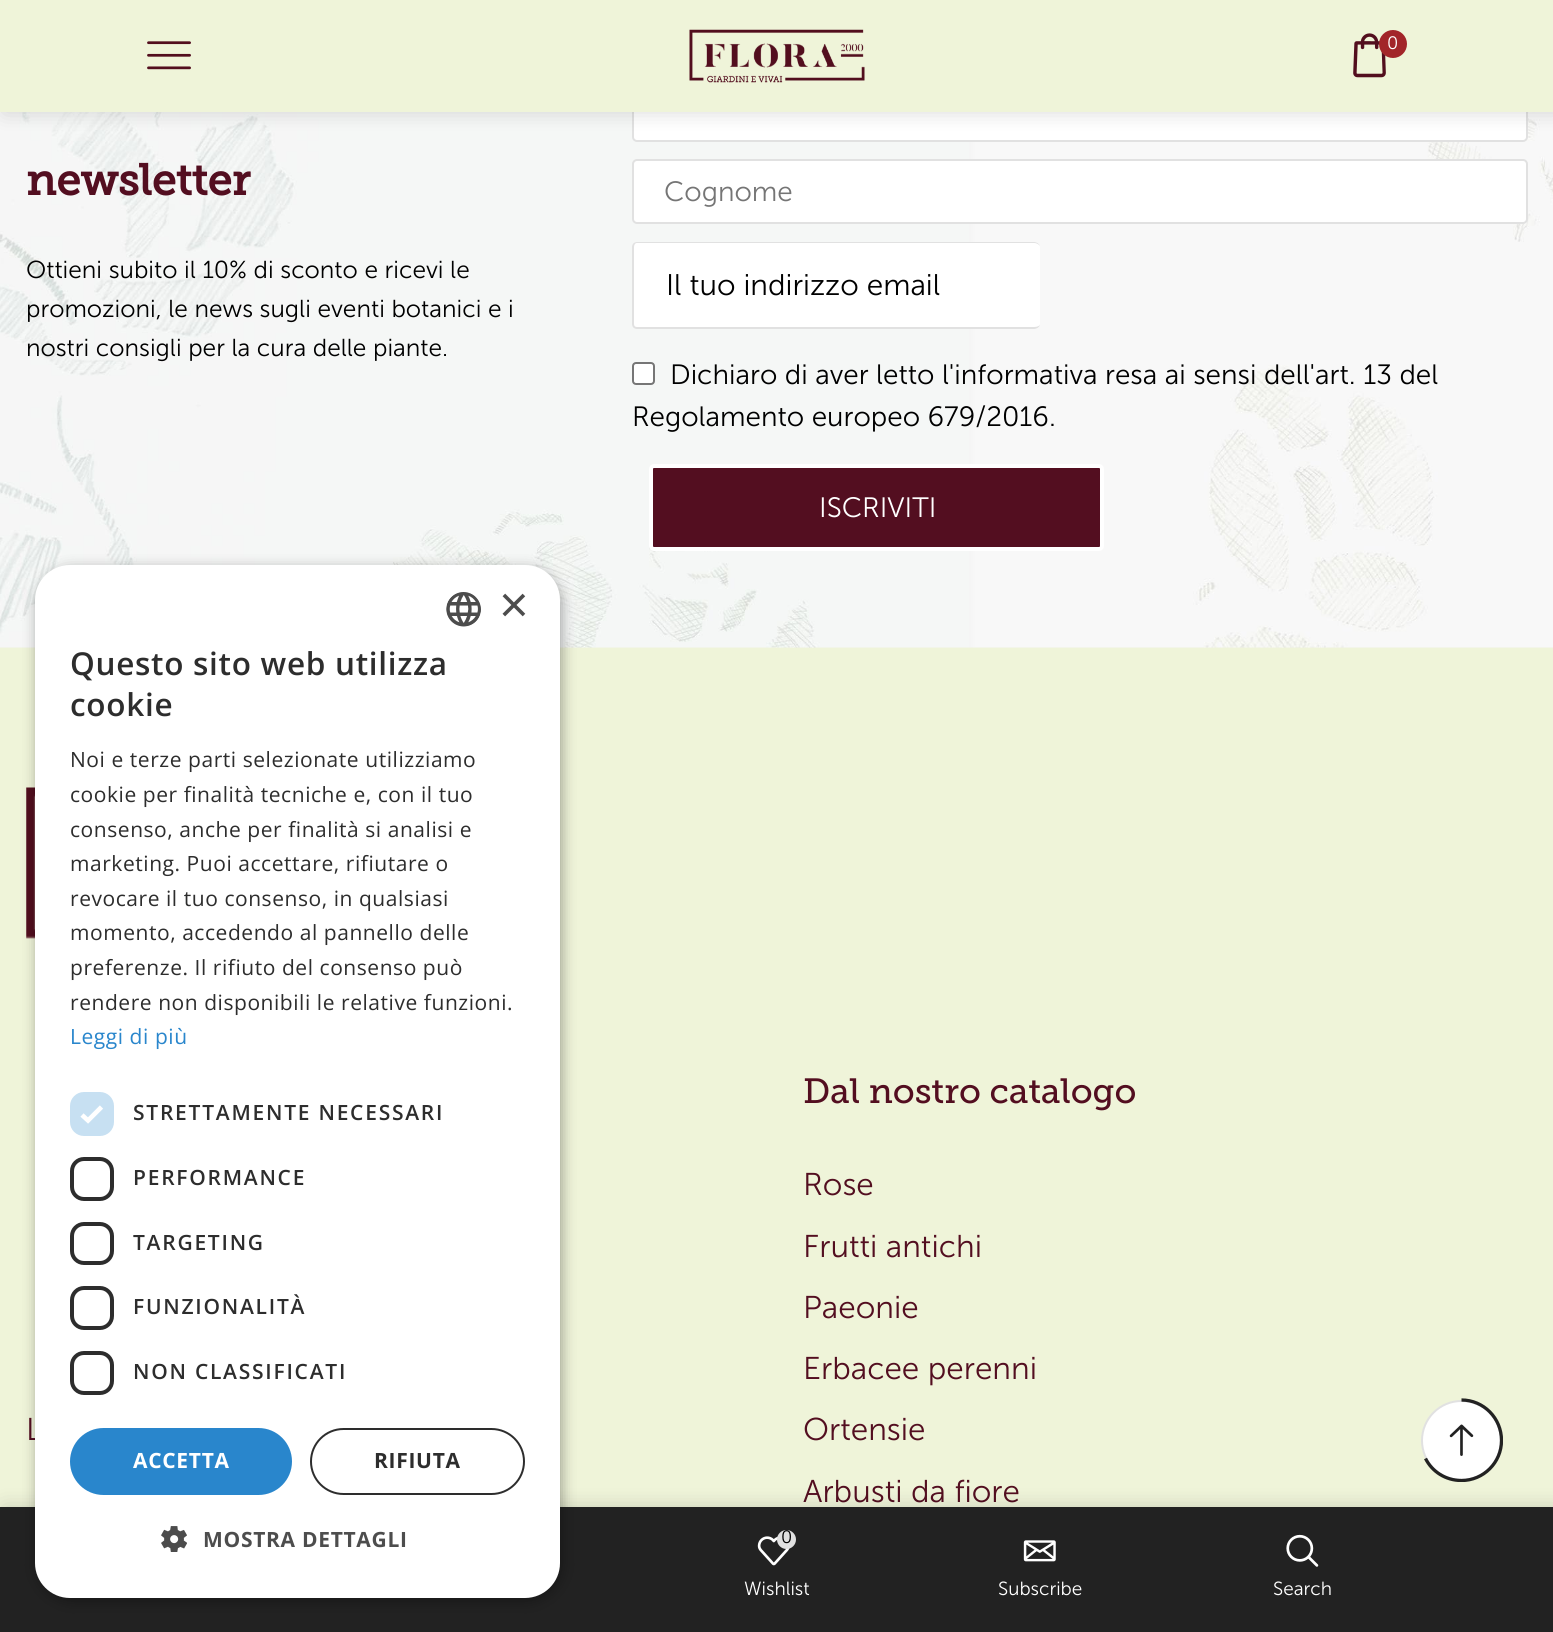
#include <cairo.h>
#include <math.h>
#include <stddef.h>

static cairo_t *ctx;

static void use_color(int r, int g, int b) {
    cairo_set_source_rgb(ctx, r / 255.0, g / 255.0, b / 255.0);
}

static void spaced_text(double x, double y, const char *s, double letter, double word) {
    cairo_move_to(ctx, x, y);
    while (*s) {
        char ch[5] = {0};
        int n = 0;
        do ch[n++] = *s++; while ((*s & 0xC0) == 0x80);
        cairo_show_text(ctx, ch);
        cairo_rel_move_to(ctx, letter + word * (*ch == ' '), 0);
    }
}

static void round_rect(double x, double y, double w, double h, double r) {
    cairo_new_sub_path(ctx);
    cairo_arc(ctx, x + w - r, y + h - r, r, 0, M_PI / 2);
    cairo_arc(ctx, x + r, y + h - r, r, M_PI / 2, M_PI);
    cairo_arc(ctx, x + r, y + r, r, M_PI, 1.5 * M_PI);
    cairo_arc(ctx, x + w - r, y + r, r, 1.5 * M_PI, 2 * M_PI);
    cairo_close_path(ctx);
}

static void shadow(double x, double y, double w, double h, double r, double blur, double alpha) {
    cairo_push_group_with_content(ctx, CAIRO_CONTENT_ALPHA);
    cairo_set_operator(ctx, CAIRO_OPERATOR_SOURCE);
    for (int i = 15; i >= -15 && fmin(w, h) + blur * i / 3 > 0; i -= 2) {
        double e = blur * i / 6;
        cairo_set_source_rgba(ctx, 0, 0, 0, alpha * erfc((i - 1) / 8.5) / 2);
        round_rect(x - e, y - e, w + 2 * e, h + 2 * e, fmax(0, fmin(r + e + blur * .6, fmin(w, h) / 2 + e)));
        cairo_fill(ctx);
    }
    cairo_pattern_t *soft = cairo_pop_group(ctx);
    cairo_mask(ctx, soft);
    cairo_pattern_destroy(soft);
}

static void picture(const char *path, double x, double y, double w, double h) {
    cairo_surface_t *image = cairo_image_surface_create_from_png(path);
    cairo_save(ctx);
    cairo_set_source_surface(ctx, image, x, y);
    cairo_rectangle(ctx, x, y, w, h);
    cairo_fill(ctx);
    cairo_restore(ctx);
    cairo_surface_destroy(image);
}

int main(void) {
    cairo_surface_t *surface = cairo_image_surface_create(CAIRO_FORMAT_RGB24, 1553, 1632);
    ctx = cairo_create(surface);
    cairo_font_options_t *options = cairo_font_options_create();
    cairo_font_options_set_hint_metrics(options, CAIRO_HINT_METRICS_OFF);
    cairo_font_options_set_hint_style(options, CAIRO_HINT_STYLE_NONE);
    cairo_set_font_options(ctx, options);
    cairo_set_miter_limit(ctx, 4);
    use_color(239, 243, 220);
    cairo_paint(ctx);
    picture("img4.png", 0, 112, 1553, 536);
    use_color(255, 255, 255);
    round_rect(633, 78, 894, 63, 4);
    cairo_fill_preserve(ctx);
    use_color(225, 225, 225);
    cairo_stroke(ctx);
    use_color(0, 0, 0);
    shadow(4, 0, 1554, 112, 0, 10.5, 0.15);
    use_color(239, 244, 217);
    cairo_rectangle(ctx, 0, 0, 1553, 112);
    cairo_fill(ctx);
    picture("img1.png", 147, 41, 44, 29);
    picture("img2.png", 689, 29, 176, 54);
    picture("img3.png", 1353, 33, 33, 45);
    use_color(162, 37, 41);
    cairo_arc(ctx, 1393, 44, 14, 0, 2 * M_PI);
    cairo_fill(ctx);
    cairo_select_font_face(ctx, "Museo Sans Light", CAIRO_FONT_SLANT_NORMAL, CAIRO_FONT_WEIGHT_NORMAL);
    cairo_set_font_size(ctx, 18);
    use_color(255, 255, 255);
    cairo_move_to(ctx, 1387, 49);
    cairo_show_text(ctx, "0");
    cairo_select_font_face(ctx, "Museo Slab", CAIRO_FONT_SLANT_NORMAL, CAIRO_FONT_WEIGHT_BOLD);
    cairo_set_font_size(ctx, 43.75);
    use_color(83, 14, 32);
    cairo_move_to(ctx, 26, 195);
    cairo_show_text(ctx, "newsletter");
    cairo_select_font_face(ctx, "Museo Sans Light", CAIRO_FONT_SLANT_NORMAL, CAIRO_FONT_WEIGHT_NORMAL);
    cairo_set_font_size(ctx, 24.5);
    use_color(0, 0, 0);
    cairo_move_to(ctx, 26, 278);
    cairo_show_text(ctx, "Ottieni subito il 10% di sconto e ricevi le");
    cairo_move_to(ctx, 26, 317);
    cairo_show_text(ctx, "promozioni, le news sugli eventi botanici e i");
    cairo_move_to(ctx, 26, 356);
    cairo_show_text(ctx, "nostri consigli per la cura delle piante.");
    use_color(255, 255, 255);
    round_rect(633, 160, 894, 63, 4);
    cairo_fill_preserve(ctx);
    use_color(225, 225, 225);
    cairo_stroke(ctx);
    cairo_set_font_size(ctx, 27.9);
    use_color(117, 117, 117);
    cairo_move_to(ctx, 664, 201);
    cairo_show_text(ctx, "Cognome");
    use_color(255, 255, 255);
    round_rect(632, 242, 408, 87, 5);
    cairo_fill(ctx);
    use_color(225, 225, 225);
    cairo_set_fill_rule(ctx, CAIRO_FILL_RULE_EVEN_ODD);
    cairo_new_path(ctx);
    cairo_move_to(ctx, 637, 242);
    cairo_line_to(ctx, 1034, 242);
    cairo_curve_to(ctx, 1037, 242, 1040, 244, 1040, 247);
    cairo_line_to(ctx, 1040, 324);
    cairo_curve_to(ctx, 1040, 327, 1037, 329, 1034, 329);
    cairo_line_to(ctx, 637, 329);
    cairo_curve_to(ctx, 634, 329, 632, 327, 632, 324);
    cairo_line_to(ctx, 632, 247);
    cairo_curve_to(ctx, 632, 244, 634, 242, 637, 242);
    cairo_close_path(ctx);
    cairo_move_to(ctx, 637, 243);
    cairo_line_to(ctx, 1034, 243);
    cairo_curve_to(ctx, 1037, 243, 1040, 245, 1040, 247);
    cairo_line_to(ctx, 1040, 324);
    cairo_curve_to(ctx, 1040, 326, 1037, 327, 1034, 327);
    cairo_line_to(ctx, 637, 327);
    cairo_curve_to(ctx, 635, 327, 634, 326, 634, 324);
    cairo_line_to(ctx, 634, 247);
    cairo_curve_to(ctx, 634, 245, 635, 243, 637, 243);
    cairo_close_path(ctx);
    cairo_fill(ctx);
    cairo_set_font_size(ctx, 29.75);
    use_color(0, 0, 0);
    cairo_move_to(ctx, 666, 295);
    cairo_show_text(ctx, "Il tuo indirizzo email");
    use_color(255, 255, 255);
    round_rect(633, 363, 21, 21, 3);
    cairo_fill_preserve(ctx);
    use_color(118, 118, 118);
    cairo_stroke(ctx);
    cairo_set_font_size(ctx, 27.9);
    use_color(0, 0, 0);
    cairo_move_to(ctx, 670, 384);
    cairo_show_text(ctx, "Dichiaro di aver letto l'informativa resa ai sensi dell'art. 13 del");
    cairo_move_to(ctx, 632, 426);
    cairo_show_text(ctx, "Regolamento europeo 679/2016.");
    use_color(83, 14, 32);
    round_rect(651, 466, 451, 83, 3);
    cairo_fill_preserve(ctx);
    use_color(255, 255, 255);
    cairo_set_line_width(ctx, 4);
    cairo_stroke(ctx);
    cairo_set_font_size(ctx, 28);
    cairo_move_to(ctx, 819, 517);
    cairo_show_text(ctx, "ISCRIVITI");
    use_color(239, 244, 217);
    cairo_rectangle(ctx, 0, 648, 1553, 859);
    cairo_fill(ctx);
    picture("img5.png", 26, 787, 9, 152);
    cairo_set_font_size(ctx, 31.5);
    use_color(83, 14, 32);
    cairo_move_to(ctx, 26, 1440);
    cairo_show_text(ctx, "L");
    cairo_select_font_face(ctx, "Museo Slab", CAIRO_FONT_SLANT_NORMAL, CAIRO_FONT_WEIGHT_NORMAL);
    cairo_set_font_size(ctx, 35);
    cairo_move_to(ctx, 803, 1103);
    cairo_show_text(ctx, "Dal nostro catalogo");
    cairo_select_font_face(ctx, "Museo Sans Light", CAIRO_FONT_SLANT_NORMAL, CAIRO_FONT_WEIGHT_NORMAL);
    cairo_set_font_size(ctx, 31.5);
    cairo_move_to(ctx, 803, 1195);
    cairo_show_text(ctx, "Rose");
    cairo_move_to(ctx, 803, 1257);
    cairo_show_text(ctx, "Frutti antichi");
    cairo_move_to(ctx, 803, 1318);
    cairo_show_text(ctx, "Paeonie");
    cairo_move_to(ctx, 803, 1379);
    cairo_show_text(ctx, "Erbacee perenni");
    cairo_move_to(ctx, 803, 1440);
    cairo_show_text(ctx, "Ortensie");
    cairo_move_to(ctx, 803, 1502);
    cairo_show_text(ctx, "Arbusti da fiore");
    use_color(0, 0, 0);
    shadow(4, 1507, 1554, 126, 0, 10.5, 0.15);
    use_color(255, 255, 255);
    cairo_arc(ctx, 1461.5, 1440.5, 39.5, 0, 2 * M_PI);
    cairo_fill_preserve(ctx);
    use_color(225, 225, 225);
    cairo_set_line_width(ctx, 2);
    cairo_stroke(ctx);
    cairo_save(ctx);
    cairo_set_fill_rule(ctx, CAIRO_FILL_RULE_WINDING);
    cairo_rectangle(ctx, 1419, 1398, 84, 84);
    cairo_clip(ctx);
    cairo_new_path(ctx);
    cairo_move_to(ctx, 1461.5, 1400);
    cairo_curve_to(ctx, 1483.5, 1400, 1501.5, 1418, 1501.5, 1440.5);
    cairo_curve_to(ctx, 1501.5, 1462.5, 1483.5, 1480.5, 1461.5, 1480.5);
    cairo_curve_to(ctx, 1445.5, 1480.5, 1432, 1471.5, 1425.5, 1458.5);
    use_color(34, 34, 34);
    cairo_set_line_width(ctx, 3.3);
    cairo_stroke(ctx);
    cairo_restore(ctx);
    picture("img6.png", 1449, 1424, 25, 32);
    use_color(34, 34, 34);
    cairo_rectangle(ctx, 0, 1507, 1553, 125);
    cairo_fill(ctx);
    picture("img7.png", 757, 1536, 33, 30);
    use_color(225, 225, 225);
    cairo_arc(ctx, 786.5, 1539.5, 9.5, 0, 2 * M_PI);
    cairo_fill(ctx);
    cairo_set_font_size(ctx, 18);
    use_color(0, 0, 0);
    cairo_move_to(ctx, 781, 1543);
    cairo_show_text(ctx, "0");
    cairo_set_font_size(ctx, 19);
    use_color(255, 255, 255);
    cairo_move_to(ctx, 744, 1595);
    cairo_show_text(ctx, "Wishlist");
    picture("img8.png", 1023, 1540, 33, 22);
    cairo_move_to(ctx, 998, 1595);
    cairo_show_text(ctx, "Subscribe");
    picture("img9.png", 1286, 1534, 33, 33);
    cairo_move_to(ctx, 1273, 1595);
    cairo_show_text(ctx, "Search");
    use_color(0, 0, 0);
    shadow(37, 569, 525, 1032, 35, 7, 0.35);
    use_color(255, 255, 255);
    round_rect(35, 565, 525, 1033, 35);
    cairo_fill(ctx);
    picture("img10.png", 446, 592, 35, 35);
    cairo_select_font_face(ctx, "Liberation Sans", CAIRO_FONT_SLANT_NORMAL, CAIRO_FONT_WEIGHT_NORMAL);
    cairo_set_font_size(ctx, 51);
    use_color(77, 77, 77);
    cairo_move_to(ctx, 499, 622);
    cairo_show_text(ctx, "×");
    cairo_select_font_face(ctx, "Open Sans SemiBold", CAIRO_FONT_SLANT_NORMAL, CAIRO_FONT_WEIGHT_NORMAL);
    cairo_set_font_size(ctx, 31.5);
    use_color(45, 45, 45);
    spaced_text(70, 675, "Questo sito web utilizza", 0.7, 0);
    spaced_text(70, 716, "cookie", 0.7, 0);
    cairo_select_font_face(ctx, "Open Sans", CAIRO_FONT_SLANT_NORMAL, CAIRO_FONT_WEIGHT_NORMAL);
    cairo_set_font_size(ctx, 21);
    spaced_text(70, 767, "Noi e terze parti selezionate utilizziamo", 0.55, 0);
    spaced_text(70, 802, "cookie per finalità tecniche e, con il tuo", 0.55, 0);
    spaced_text(70, 837, "consenso, anche per finalità si analisi e", 0.55, 0);
    spaced_text(70, 871, "marketing. Puoi accettare, rifiutare o", 0.55, 0);
    spaced_text(70, 906, "revocare il tuo consenso, in qualsiasi", 0.55, 0);
    spaced_text(70, 940, "momento, accedendo al pannello delle", 0.55, 0);
    spaced_text(70, 975, "preferenze. Il rifiuto del consenso può", 0.55, 0);
    spaced_text(70, 1010, "rendere non disponibili le relative funzioni.", 0.55, 0);
    use_color(41, 134, 204);
    spaced_text(70, 1044, "Leggi di più", 0.55, 0);
    use_color(199, 224, 242);
    round_rect(70, 1092, 44, 44, 14);
    cairo_fill(ctx);
    cairo_new_path(ctx);
    cairo_move_to(ctx, 82, 1115);
    cairo_line_to(ctx, 88, 1120.5);
    cairo_line_to(ctx, 101.5, 1107);
    use_color(255, 255, 255);
    cairo_set_line_width(ctx, 4.6);
    cairo_stroke(ctx);
    cairo_select_font_face(ctx, "Open Sans SemiBold", CAIRO_FONT_SLANT_NORMAL, CAIRO_FONT_WEIGHT_NORMAL);
    use_color(45, 45, 45);
    spaced_text(133, 1120, "STRETTAMENTE NECESSARI", 1.75, 0);
    round_rect(72, 1159, 40, 40, 12);
    cairo_set_line_width(ctx, 4);
    cairo_stroke(ctx);
    spaced_text(133, 1185, "PERFORMANCE", 1.75, 0);
    round_rect(72, 1224, 40, 39, 12);
    cairo_stroke(ctx);
    spaced_text(133, 1250, "TARGETING", 1.75, 0);
    round_rect(72, 1288, 40, 40, 12);
    cairo_stroke(ctx);
    spaced_text(133, 1314, "FUNZIONALITÀ", 1.75, 0);
    round_rect(72, 1353, 40, 40, 12);
    cairo_stroke(ctx);
    spaced_text(133, 1379, "NON CLASSIFICATI", 1.75, 0);
    use_color(41, 134, 204);
    round_rect(70, 1428, 222, 67, 33.5);
    cairo_fill(ctx);
    cairo_select_font_face(ctx, "Open Sans", CAIRO_FONT_SLANT_NORMAL, CAIRO_FONT_WEIGHT_BOLD);
    use_color(255, 255, 255);
    spaced_text(133, 1468, "ACCETTA", 0.7, 0);
    round_rect(311, 1429, 213, 65, 32.5);
    use_color(45, 45, 45);
    cairo_set_line_width(ctx, 2);
    cairo_stroke(ctx);
    spaced_text(374, 1468, "RIFIUTA", 0.7, 0);
    picture("img11.png", 161, 1526, 26, 26);
    use_color(77, 77, 77);
    spaced_text(203, 1547, "MOSTRA DETTAGLI", 0.7, 0);
    cairo_surface_write_to_png(surface, "result.png");
    cairo_font_options_destroy(options);
    cairo_destroy(ctx);
    cairo_surface_destroy(surface);
    return 0;
}
